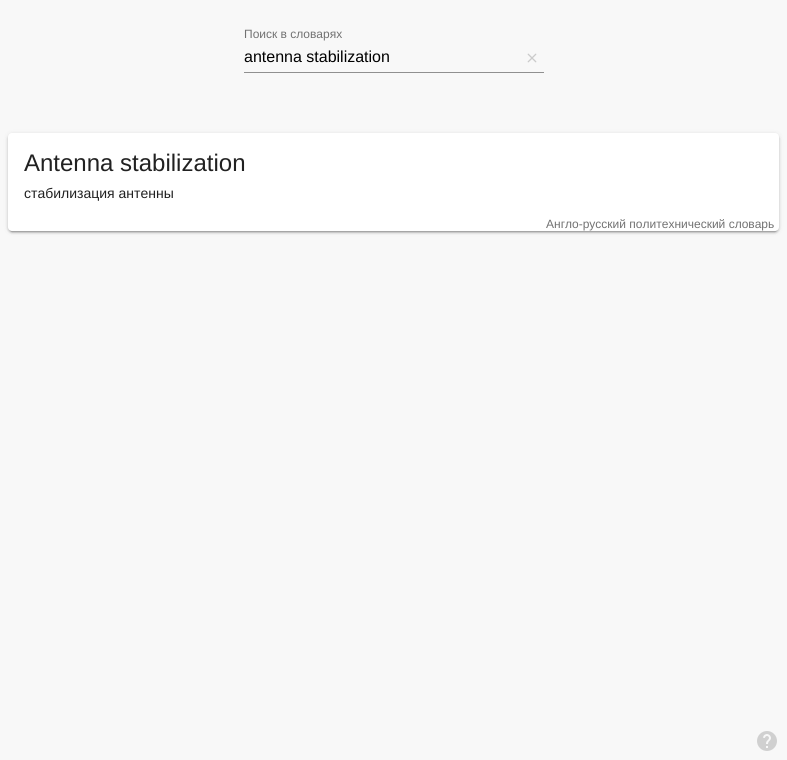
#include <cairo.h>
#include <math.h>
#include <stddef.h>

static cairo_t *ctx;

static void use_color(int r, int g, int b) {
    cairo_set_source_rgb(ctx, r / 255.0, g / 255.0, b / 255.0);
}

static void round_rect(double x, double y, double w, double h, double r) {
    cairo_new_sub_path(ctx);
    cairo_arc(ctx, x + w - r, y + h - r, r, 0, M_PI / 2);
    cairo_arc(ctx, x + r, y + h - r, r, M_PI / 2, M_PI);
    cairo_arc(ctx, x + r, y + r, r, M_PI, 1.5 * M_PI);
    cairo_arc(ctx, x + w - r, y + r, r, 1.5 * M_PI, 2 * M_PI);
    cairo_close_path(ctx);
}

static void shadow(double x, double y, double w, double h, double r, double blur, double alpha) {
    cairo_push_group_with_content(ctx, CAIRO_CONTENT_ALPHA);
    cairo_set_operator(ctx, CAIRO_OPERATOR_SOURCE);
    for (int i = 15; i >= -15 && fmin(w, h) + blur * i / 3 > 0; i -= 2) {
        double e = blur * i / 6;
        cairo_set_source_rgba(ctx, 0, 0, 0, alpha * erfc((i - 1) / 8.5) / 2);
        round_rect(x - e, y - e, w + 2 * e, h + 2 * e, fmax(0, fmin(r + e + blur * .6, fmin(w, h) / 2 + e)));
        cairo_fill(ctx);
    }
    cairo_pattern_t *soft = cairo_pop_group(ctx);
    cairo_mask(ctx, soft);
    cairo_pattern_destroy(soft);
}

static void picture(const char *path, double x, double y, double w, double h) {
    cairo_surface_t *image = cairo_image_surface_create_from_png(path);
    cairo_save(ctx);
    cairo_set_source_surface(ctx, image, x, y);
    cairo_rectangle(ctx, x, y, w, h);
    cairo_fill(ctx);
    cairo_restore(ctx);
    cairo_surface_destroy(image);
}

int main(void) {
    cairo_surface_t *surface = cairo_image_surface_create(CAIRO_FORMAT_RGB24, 787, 760);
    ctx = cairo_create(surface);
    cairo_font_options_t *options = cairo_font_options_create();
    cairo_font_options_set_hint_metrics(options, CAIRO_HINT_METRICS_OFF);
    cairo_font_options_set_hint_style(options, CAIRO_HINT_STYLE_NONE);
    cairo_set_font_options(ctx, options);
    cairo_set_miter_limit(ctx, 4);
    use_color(248, 248, 248);
    cairo_paint(ctx);
    cairo_select_font_face(ctx, "Liberation Sans", CAIRO_FONT_SLANT_NORMAL, CAIRO_FONT_WEIGHT_NORMAL);
    cairo_set_font_size(ctx, 12);
    use_color(114, 114, 114);
    cairo_move_to(ctx, 244, 38);
    cairo_show_text(ctx, "Поиск в словарях");
    cairo_set_font_size(ctx, 16);
    use_color(0, 0, 0);
    cairo_move_to(ctx, 244, 62);
    cairo_show_text(ctx, "antenna stabilization");
    picture("img1.png", 527, 53, 10, 10);
    use_color(144, 144, 144);
    cairo_rectangle(ctx, 244, 72, 300, 1);
    cairo_fill(ctx);
    use_color(0, 0, 0);
    shadow(8, 134, 771, 98, 4, 2.5, 0.12);
    shadow(8, 135, 771, 98, 4, 1, 0.14);
    shadow(10, 138, 767, 94, 2, 0.5, 0.2);
    use_color(255, 255, 255);
    round_rect(8, 133, 771, 98, 4);
    cairo_fill(ctx);
    cairo_set_font_size(ctx, 24);
    use_color(33, 33, 33);
    cairo_move_to(ctx, 24, 171);
    cairo_show_text(ctx, "Antenna stabilization");
    cairo_set_font_size(ctx, 14);
    cairo_move_to(ctx, 24, 198);
    cairo_show_text(ctx, "стабилизация антенны");
    cairo_set_font_size(ctx, 12);
    use_color(114, 114, 114);
    cairo_move_to(ctx, 546, 228);
    cairo_show_text(ctx, "Англо-русский политехнический словарь");
    picture("img2.png", 757, 731, 20, 20);
    cairo_surface_write_to_png(surface, "result.png");
    cairo_font_options_destroy(options);
    cairo_destroy(ctx);
    cairo_surface_destroy(surface);
    return 0;
}
